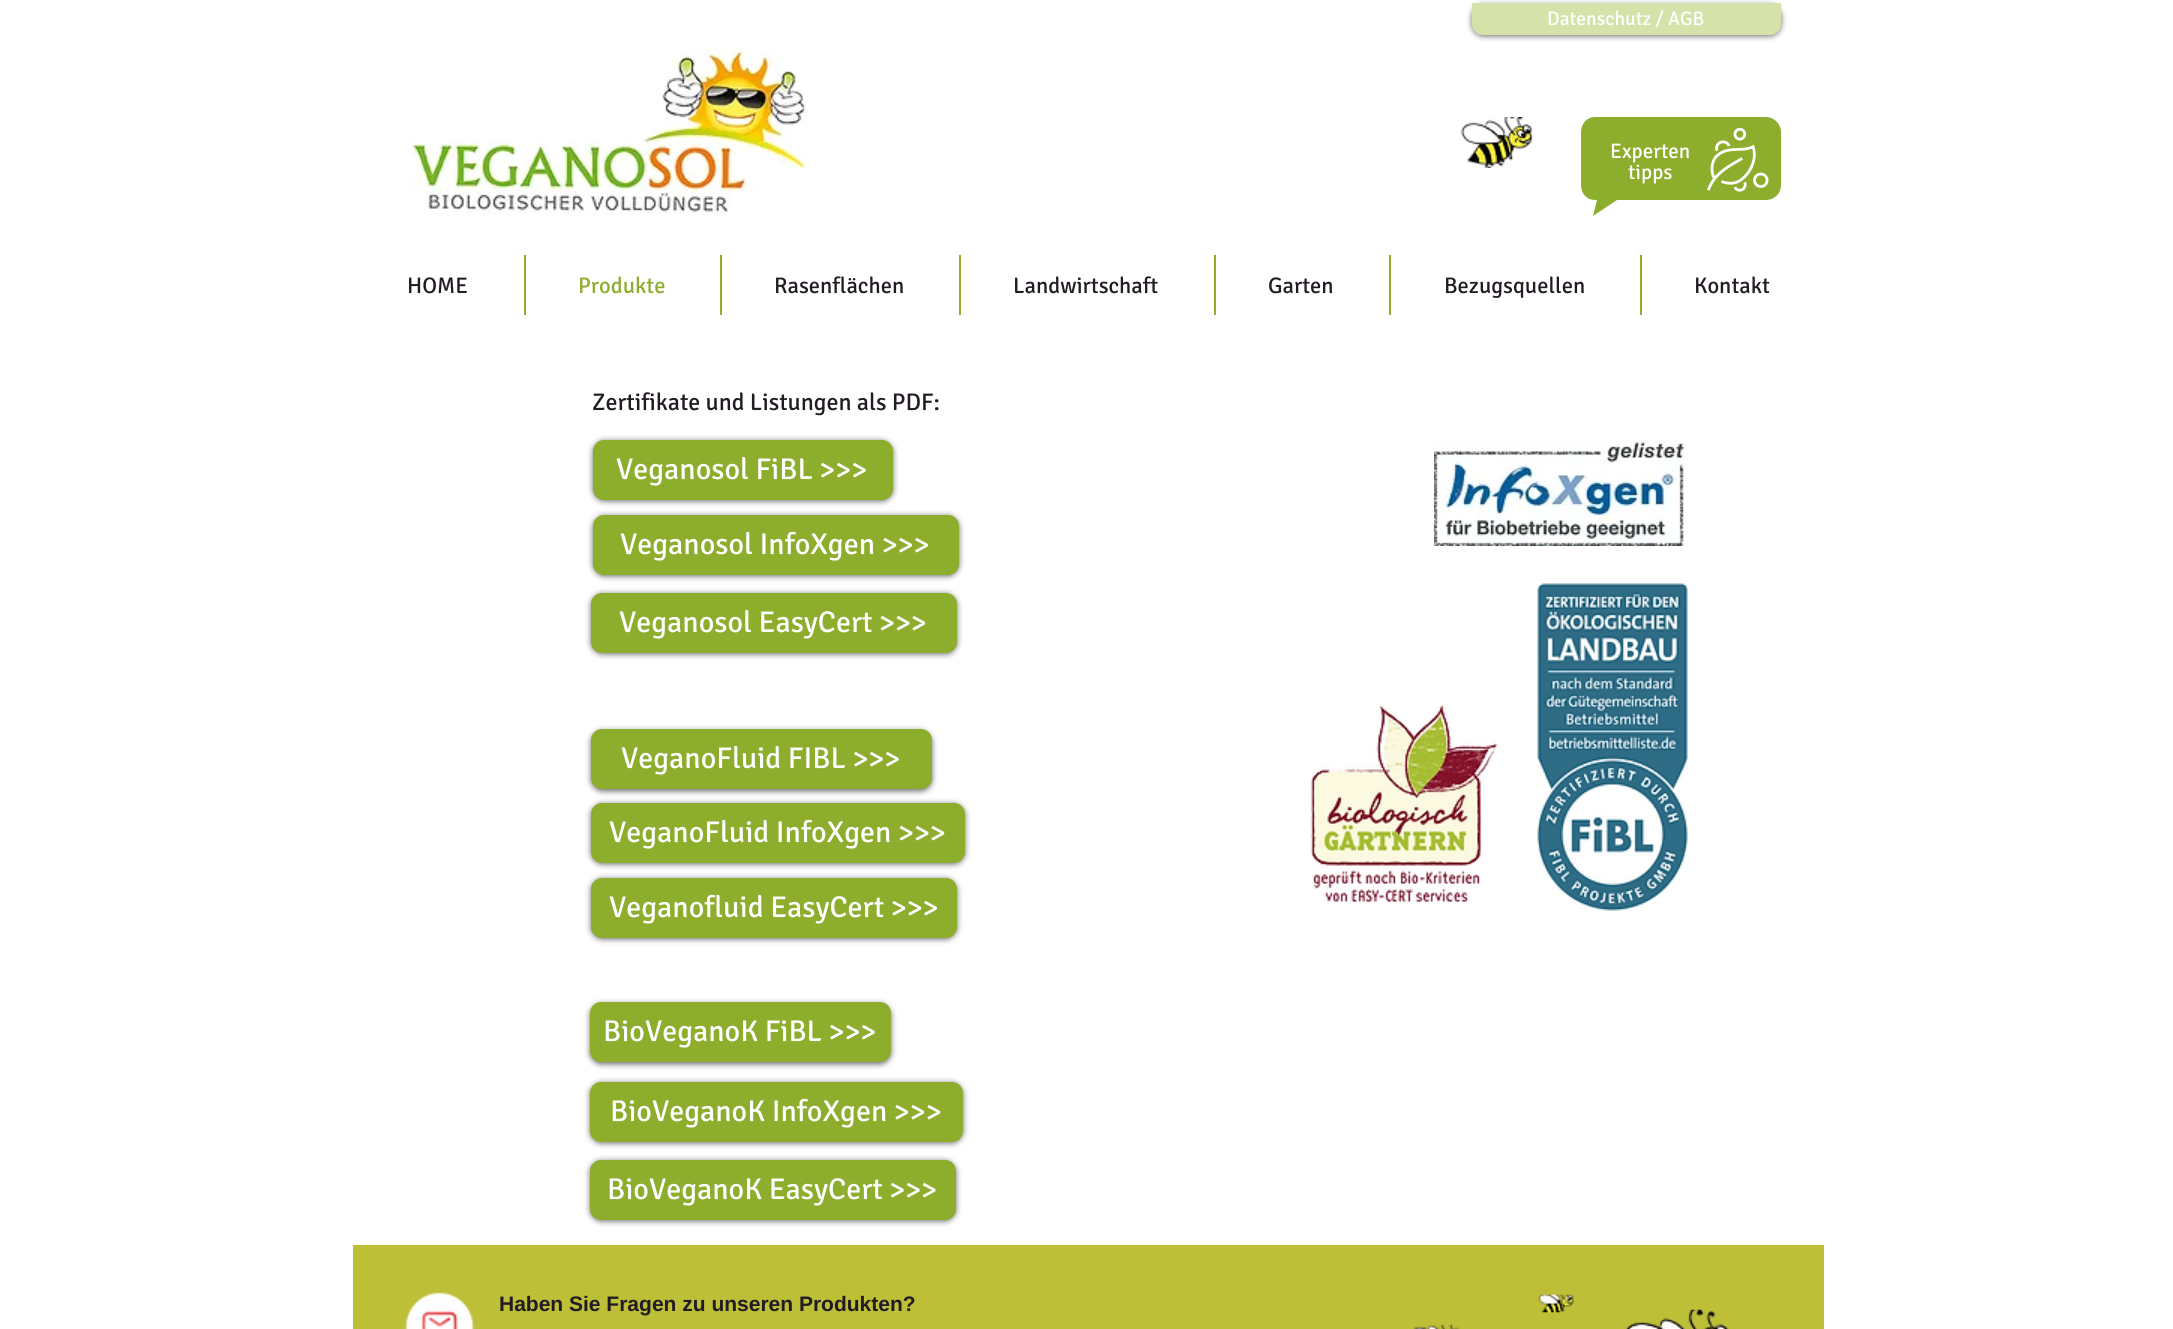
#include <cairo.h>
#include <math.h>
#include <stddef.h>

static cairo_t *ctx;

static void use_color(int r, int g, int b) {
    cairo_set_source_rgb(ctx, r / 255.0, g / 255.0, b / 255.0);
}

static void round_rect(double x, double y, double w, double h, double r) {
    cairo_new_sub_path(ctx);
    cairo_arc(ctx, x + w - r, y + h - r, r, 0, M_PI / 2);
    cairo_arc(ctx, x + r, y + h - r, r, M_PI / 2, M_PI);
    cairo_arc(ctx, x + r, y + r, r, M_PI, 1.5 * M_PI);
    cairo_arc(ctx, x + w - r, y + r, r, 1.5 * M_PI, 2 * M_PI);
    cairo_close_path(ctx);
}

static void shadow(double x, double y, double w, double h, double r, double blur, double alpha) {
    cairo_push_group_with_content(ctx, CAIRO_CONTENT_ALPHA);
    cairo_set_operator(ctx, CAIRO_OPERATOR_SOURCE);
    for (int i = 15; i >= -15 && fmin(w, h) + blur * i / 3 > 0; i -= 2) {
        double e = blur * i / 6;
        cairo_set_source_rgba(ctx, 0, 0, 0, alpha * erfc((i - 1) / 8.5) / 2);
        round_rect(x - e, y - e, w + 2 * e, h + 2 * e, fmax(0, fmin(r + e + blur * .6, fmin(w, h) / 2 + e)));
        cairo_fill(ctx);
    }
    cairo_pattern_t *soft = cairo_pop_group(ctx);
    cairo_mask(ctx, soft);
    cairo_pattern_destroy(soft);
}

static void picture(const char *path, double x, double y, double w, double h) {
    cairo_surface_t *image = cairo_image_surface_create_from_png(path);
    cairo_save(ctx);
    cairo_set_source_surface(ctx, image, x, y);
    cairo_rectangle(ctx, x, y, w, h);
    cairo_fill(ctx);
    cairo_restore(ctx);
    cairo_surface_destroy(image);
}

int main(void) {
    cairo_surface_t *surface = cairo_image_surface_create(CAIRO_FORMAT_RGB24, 2173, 1329);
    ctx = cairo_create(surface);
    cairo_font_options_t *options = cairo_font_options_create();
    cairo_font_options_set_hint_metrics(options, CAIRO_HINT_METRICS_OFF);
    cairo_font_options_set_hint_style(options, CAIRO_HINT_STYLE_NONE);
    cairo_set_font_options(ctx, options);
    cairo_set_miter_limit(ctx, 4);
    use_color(255, 255, 255);
    cairo_paint(ctx);
    use_color(0, 0, 0);
    shadow(1472, 5, 309, 31, 11, 3, 0.6);
    use_color(213, 227, 171);
    cairo_new_path(ctx);
    cairo_move_to(ctx, 1472, 3);
    cairo_line_to(ctx, 1781, 3);
    cairo_line_to(ctx, 1781, 24);
    cairo_curve_to(ctx, 1781, 30, 1776, 35, 1770, 35);
    cairo_line_to(ctx, 1483, 35);
    cairo_curve_to(ctx, 1477, 35, 1472, 30, 1472, 24);
    cairo_close_path(ctx);
    cairo_fill(ctx);
    cairo_select_font_face(ctx, "Signika", CAIRO_FONT_SLANT_NORMAL, CAIRO_FONT_WEIGHT_NORMAL);
    cairo_set_font_size(ctx, 19.5);
    use_color(255, 255, 255);
    cairo_move_to(ctx, 1547, 25);
    cairo_show_text(ctx, "Datenschutz / AGB");
    picture("img1.png", 407, 46, 401, 169);
    picture("img2.png", 1460, 117, 74, 51);
    use_color(141, 173, 45);
    cairo_new_path(ctx);
    cairo_move_to(ctx, 1595, 117);
    cairo_line_to(ctx, 1766, 117);
    cairo_curve_to(ctx, 1774, 117, 1781, 124, 1781, 132);
    cairo_line_to(ctx, 1781, 185);
    cairo_curve_to(ctx, 1781, 194, 1774, 200, 1766, 200);
    cairo_line_to(ctx, 1617, 200);
    cairo_line_to(ctx, 1593, 216);
    cairo_line_to(ctx, 1597, 200);
    cairo_line_to(ctx, 1595, 200);
    cairo_curve_to(ctx, 1587, 200, 1581, 194, 1581, 185);
    cairo_line_to(ctx, 1581, 132);
    cairo_curve_to(ctx, 1581, 124, 1587, 117, 1595, 117);
    cairo_close_path(ctx);
    cairo_fill(ctx);
    cairo_set_font_size(ctx, 21);
    use_color(255, 255, 255);
    cairo_move_to(ctx, 1610, 158);
    cairo_show_text(ctx, "Experten");
    cairo_move_to(ctx, 1628, 179);
    cairo_show_text(ctx, "tipps");
    picture("img3.png", 1707, 127, 62, 65);
    cairo_set_font_size(ctx, 22.5);
    use_color(34, 27, 35);
    cairo_move_to(ctx, 407, 293);
    cairo_show_text(ctx, "HOME");
    use_color(141, 173, 45);
    cairo_rectangle(ctx, 524, 255, 2, 60);
    cairo_fill(ctx);
    cairo_move_to(ctx, 578, 293);
    cairo_show_text(ctx, "Produkte");
    cairo_rectangle(ctx, 720, 255, 2, 60);
    cairo_fill(ctx);
    use_color(34, 27, 35);
    cairo_move_to(ctx, 774, 293);
    cairo_show_text(ctx, "Rasenflächen");
    use_color(141, 173, 45);
    cairo_rectangle(ctx, 959, 255, 2, 60);
    cairo_fill(ctx);
    use_color(34, 27, 35);
    cairo_move_to(ctx, 1013, 293);
    cairo_show_text(ctx, "Landwirtschaft");
    use_color(141, 173, 45);
    cairo_rectangle(ctx, 1214, 255, 2, 60);
    cairo_fill(ctx);
    use_color(34, 27, 35);
    cairo_move_to(ctx, 1268, 293);
    cairo_show_text(ctx, "Garten");
    use_color(141, 173, 45);
    cairo_rectangle(ctx, 1389, 255, 2, 60);
    cairo_fill(ctx);
    use_color(34, 27, 35);
    cairo_move_to(ctx, 1444, 293);
    cairo_show_text(ctx, "Bezugsquellen");
    use_color(141, 173, 45);
    cairo_rectangle(ctx, 1640, 255, 2, 60);
    cairo_fill(ctx);
    use_color(34, 27, 35);
    cairo_move_to(ctx, 1694, 293);
    cairo_show_text(ctx, "Kontakt");
    cairo_set_font_size(ctx, 24);
    cairo_move_to(ctx, 592, 410);
    cairo_show_text(ctx, "Zertifikate und Listungen als PDF:");
    use_color(0, 0, 0);
    shadow(593, 441, 300, 60, 11, 3, 0.6);
    use_color(141, 173, 45);
    round_rect(593, 440, 300, 60, 11);
    cairo_fill(ctx);
    cairo_set_font_size(ctx, 30);
    use_color(255, 255, 255);
    cairo_move_to(ctx, 616, 479);
    cairo_show_text(ctx, "Veganosol FiBL >>>");
    picture("img4.png", 1434, 440, 252, 106);
    use_color(0, 0, 0);
    shadow(593, 516, 366, 60, 11, 3, 0.6);
    use_color(141, 173, 45);
    round_rect(593, 515, 366, 60, 11);
    cairo_fill(ctx);
    use_color(255, 255, 255);
    cairo_move_to(ctx, 620, 554);
    cairo_show_text(ctx, "Veganosol InfoXgen >>>");
    use_color(0, 0, 0);
    shadow(591, 594, 366, 60, 11, 3, 0.6);
    use_color(141, 173, 45);
    round_rect(591, 593, 366, 60, 11);
    cairo_fill(ctx);
    use_color(255, 255, 255);
    cairo_move_to(ctx, 619, 632);
    cairo_show_text(ctx, "Veganosol EasyCert >>>");
    picture("img5.png", 1537, 583, 151, 329);
    use_color(0, 0, 0);
    shadow(591, 731, 341, 60, 11, 3, 0.6);
    use_color(141, 173, 45);
    round_rect(591, 729, 341, 60, 11);
    cairo_fill(ctx);
    use_color(255, 255, 255);
    cairo_move_to(ctx, 621, 768);
    cairo_show_text(ctx, "VeganoFluid FIBL >>>");
    picture("img6.png", 1310, 704, 188, 199);
    use_color(0, 0, 0);
    shadow(591, 804, 374, 60, 11, 3, 0.6);
    use_color(141, 173, 45);
    round_rect(591, 803, 374, 60, 11);
    cairo_fill(ctx);
    use_color(255, 255, 255);
    cairo_move_to(ctx, 609, 842);
    cairo_show_text(ctx, "VeganoFluid InfoXgen >>>");
    use_color(0, 0, 0);
    shadow(591, 879, 366, 60, 11, 3, 0.6);
    use_color(141, 173, 45);
    round_rect(591, 878, 366, 60, 11);
    cairo_fill(ctx);
    use_color(255, 255, 255);
    cairo_move_to(ctx, 609, 917);
    cairo_show_text(ctx, "Veganofluid EasyCert >>>");
    use_color(0, 0, 0);
    shadow(590, 1004, 301, 60, 11, 3, 0.6);
    use_color(141, 173, 45);
    round_rect(590, 1002, 301, 60, 11);
    cairo_fill(ctx);
    use_color(255, 255, 255);
    cairo_move_to(ctx, 603, 1041);
    cairo_show_text(ctx, "BioVeganoK FiBL >>>");
    use_color(0, 0, 0);
    shadow(590, 1083, 373, 60, 11, 3, 0.6);
    use_color(141, 173, 45);
    round_rect(590, 1082, 373, 60, 11);
    cairo_fill(ctx);
    use_color(255, 255, 255);
    cairo_move_to(ctx, 610, 1121);
    cairo_show_text(ctx, "BioVeganoK InfoXgen >>>");
    use_color(0, 0, 0);
    shadow(590, 1161, 366, 60, 11, 3, 0.6);
    use_color(141, 173, 45);
    round_rect(590, 1160, 366, 60, 11);
    cairo_fill(ctx);
    use_color(255, 255, 255);
    cairo_move_to(ctx, 607, 1199);
    cairo_show_text(ctx, "BioVeganoK EasyCert >>>");
    use_color(189, 191, 55);
    cairo_rectangle(ctx, 353, 1245, 1471, 84);
    cairo_fill(ctx);
    picture("img7.png", 403, 1292, 73, 37);
    cairo_select_font_face(ctx, "Liberation Sans", CAIRO_FONT_SLANT_NORMAL, CAIRO_FONT_WEIGHT_BOLD);
    cairo_set_font_size(ctx, 21);
    use_color(34, 27, 35);
    cairo_move_to(ctx, 499, 1311);
    cairo_show_text(ctx, "Haben Sie Fragen zu unseren Produkten?");
    picture("img8.png", 1538, 1294, 36, 19);
    picture("img9.png", 1413, 1324, 47, 5);
    picture("img10.png", 1626, 1309, 103, 20);
    cairo_surface_write_to_png(surface, "result.png");
    cairo_font_options_destroy(options);
    cairo_destroy(ctx);
    cairo_surface_destroy(surface);
    return 0;
}
